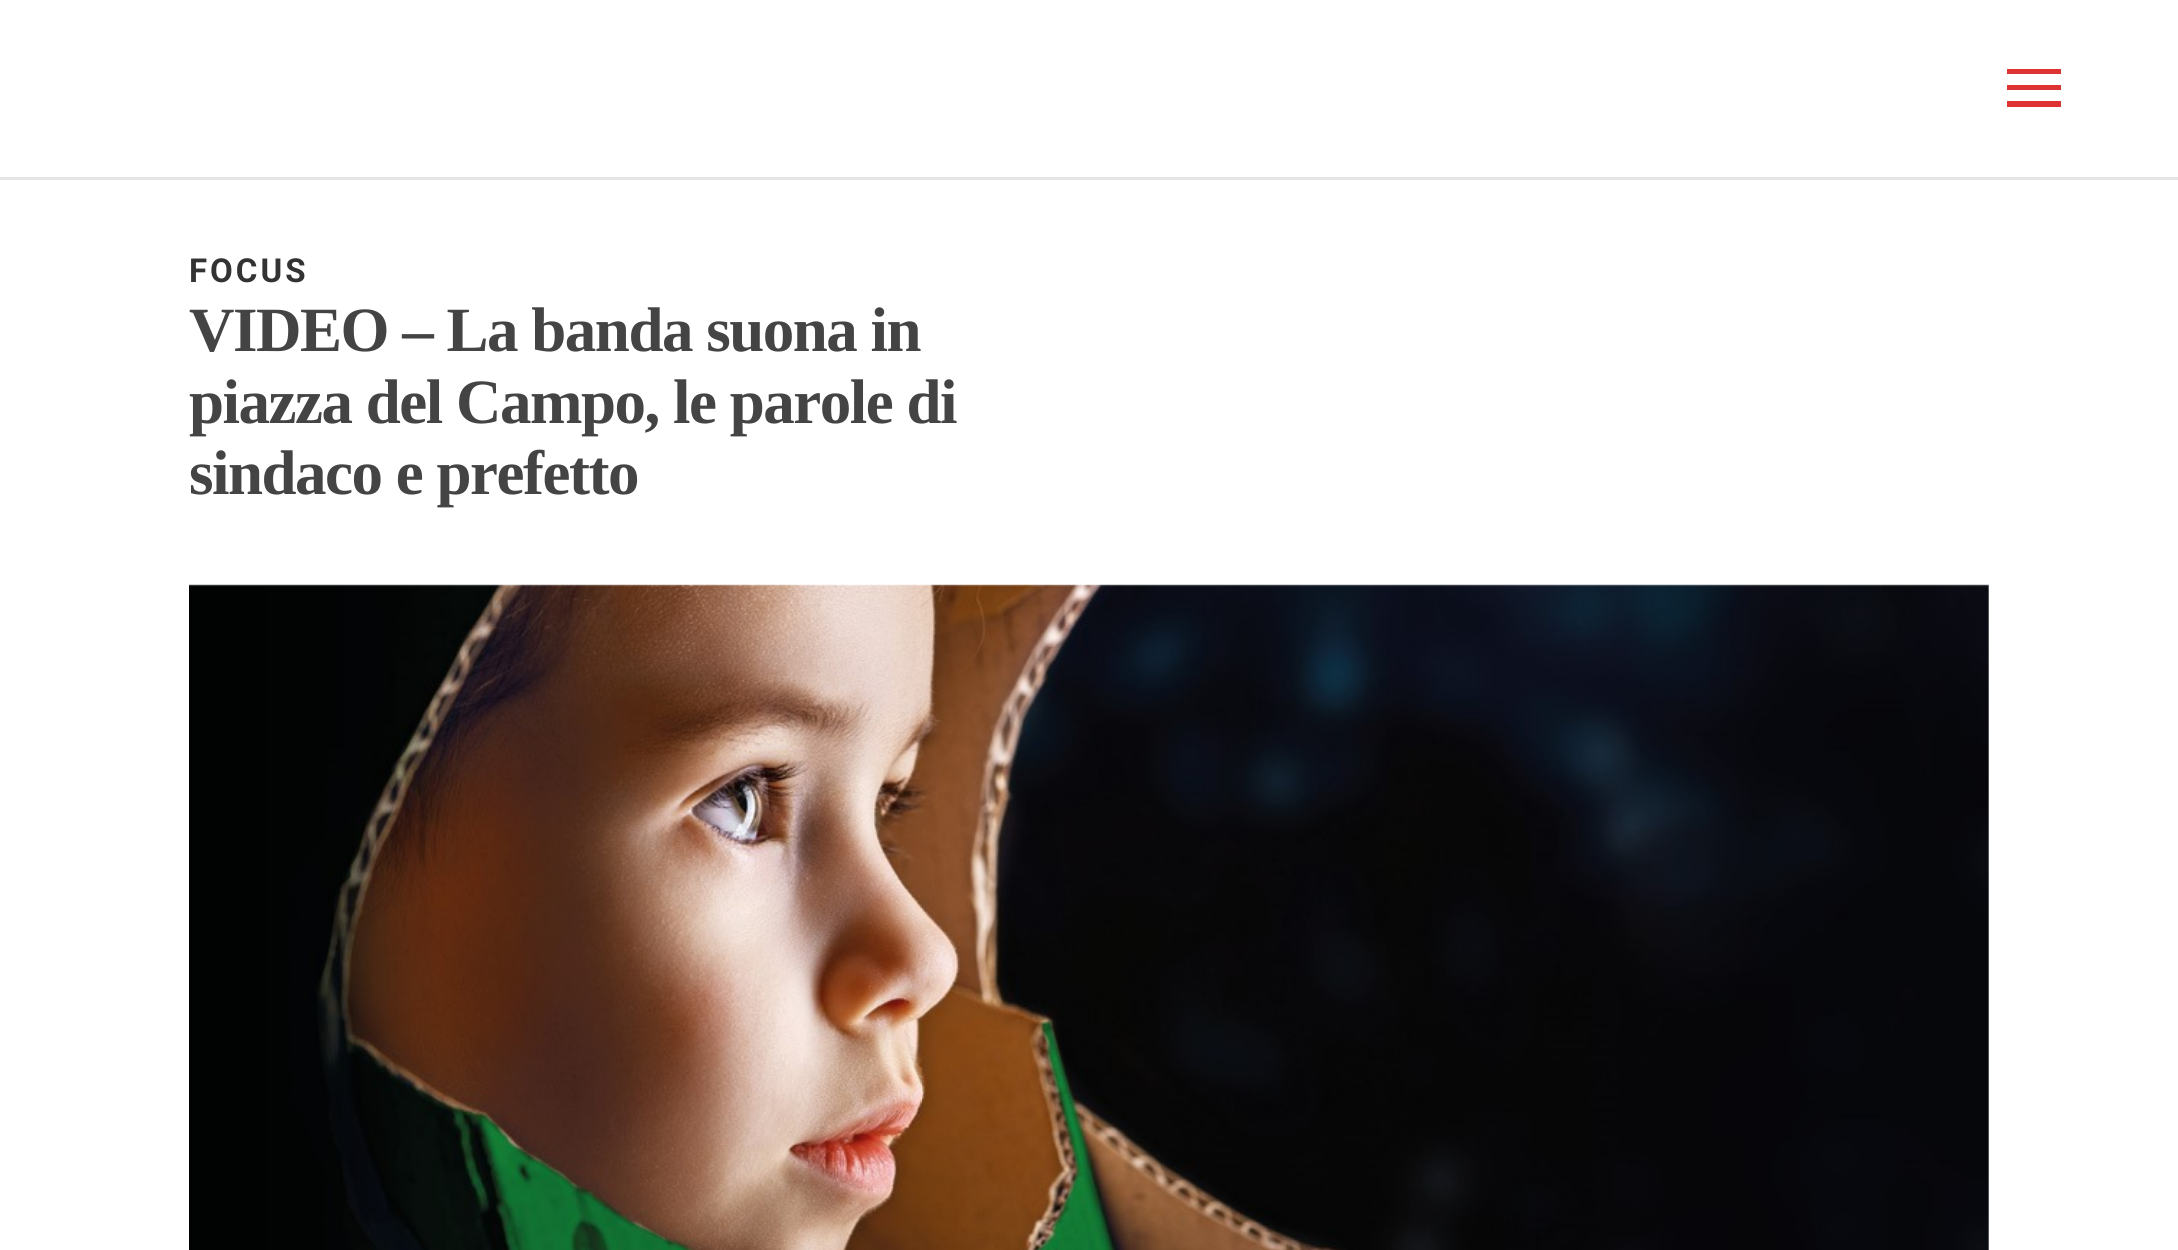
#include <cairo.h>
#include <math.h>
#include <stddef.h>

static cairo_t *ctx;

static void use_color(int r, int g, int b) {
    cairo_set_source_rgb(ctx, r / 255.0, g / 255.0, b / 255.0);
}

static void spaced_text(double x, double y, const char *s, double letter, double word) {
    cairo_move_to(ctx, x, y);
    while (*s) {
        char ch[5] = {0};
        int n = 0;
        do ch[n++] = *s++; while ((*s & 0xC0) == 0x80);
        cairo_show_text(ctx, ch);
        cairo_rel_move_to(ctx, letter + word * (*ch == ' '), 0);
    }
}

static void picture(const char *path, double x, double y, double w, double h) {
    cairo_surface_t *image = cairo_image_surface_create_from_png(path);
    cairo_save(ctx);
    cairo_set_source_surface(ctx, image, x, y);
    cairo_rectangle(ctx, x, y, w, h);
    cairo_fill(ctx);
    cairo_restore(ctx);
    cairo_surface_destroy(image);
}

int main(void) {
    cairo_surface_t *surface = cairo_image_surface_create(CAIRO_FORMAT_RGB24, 2178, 1250);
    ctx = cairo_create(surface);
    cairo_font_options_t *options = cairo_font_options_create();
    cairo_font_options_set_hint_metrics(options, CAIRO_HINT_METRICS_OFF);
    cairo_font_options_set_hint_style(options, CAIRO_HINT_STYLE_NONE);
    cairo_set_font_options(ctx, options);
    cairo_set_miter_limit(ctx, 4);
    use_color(255, 255, 255);
    cairo_paint(ctx);
    use_color(228, 228, 228);
    cairo_rectangle(ctx, 0, 177, 2178, 3);
    cairo_fill(ctx);
    use_color(221, 51, 51);
    cairo_new_path(ctx);
    cairo_move_to(ctx, 2007, 90);
    cairo_line_to(ctx, 2007, 85);
    cairo_line_to(ctx, 2061, 85);
    cairo_line_to(ctx, 2061, 90);
    cairo_close_path(ctx);
    cairo_move_to(ctx, 2007, 74);
    cairo_line_to(ctx, 2007, 69);
    cairo_line_to(ctx, 2061, 69);
    cairo_line_to(ctx, 2061, 74);
    cairo_close_path(ctx);
    cairo_move_to(ctx, 2007, 107);
    cairo_line_to(ctx, 2007, 101);
    cairo_line_to(ctx, 2061, 101);
    cairo_line_to(ctx, 2061, 107);
    cairo_close_path(ctx);
    cairo_fill(ctx);
    cairo_select_font_face(ctx, "Roboto", CAIRO_FONT_SLANT_NORMAL, CAIRO_FONT_WEIGHT_BOLD);
    cairo_set_font_size(ctx, 33);
    use_color(51, 51, 51);
    spaced_text(189, 282, "FOCUS", 3, 0);
    cairo_select_font_face(ctx, "Liberation Serif", CAIRO_FONT_SLANT_NORMAL, CAIRO_FONT_WEIGHT_BOLD);
    cairo_set_font_size(ctx, 63);
    use_color(68, 68, 68);
    spaced_text(189, 351, "VIDEO – La banda suona in", -1.5, 0);
    spaced_text(189, 423, "piazza del Campo, le parole di", -1.5, 0);
    spaced_text(189, 494, "sindaco e prefetto", -1.5, 0);
    picture("img1.png", 189, 584, 1800, 666);
    cairo_surface_write_to_png(surface, "result.png");
    cairo_font_options_destroy(options);
    cairo_destroy(ctx);
    cairo_surface_destroy(surface);
    return 0;
}
